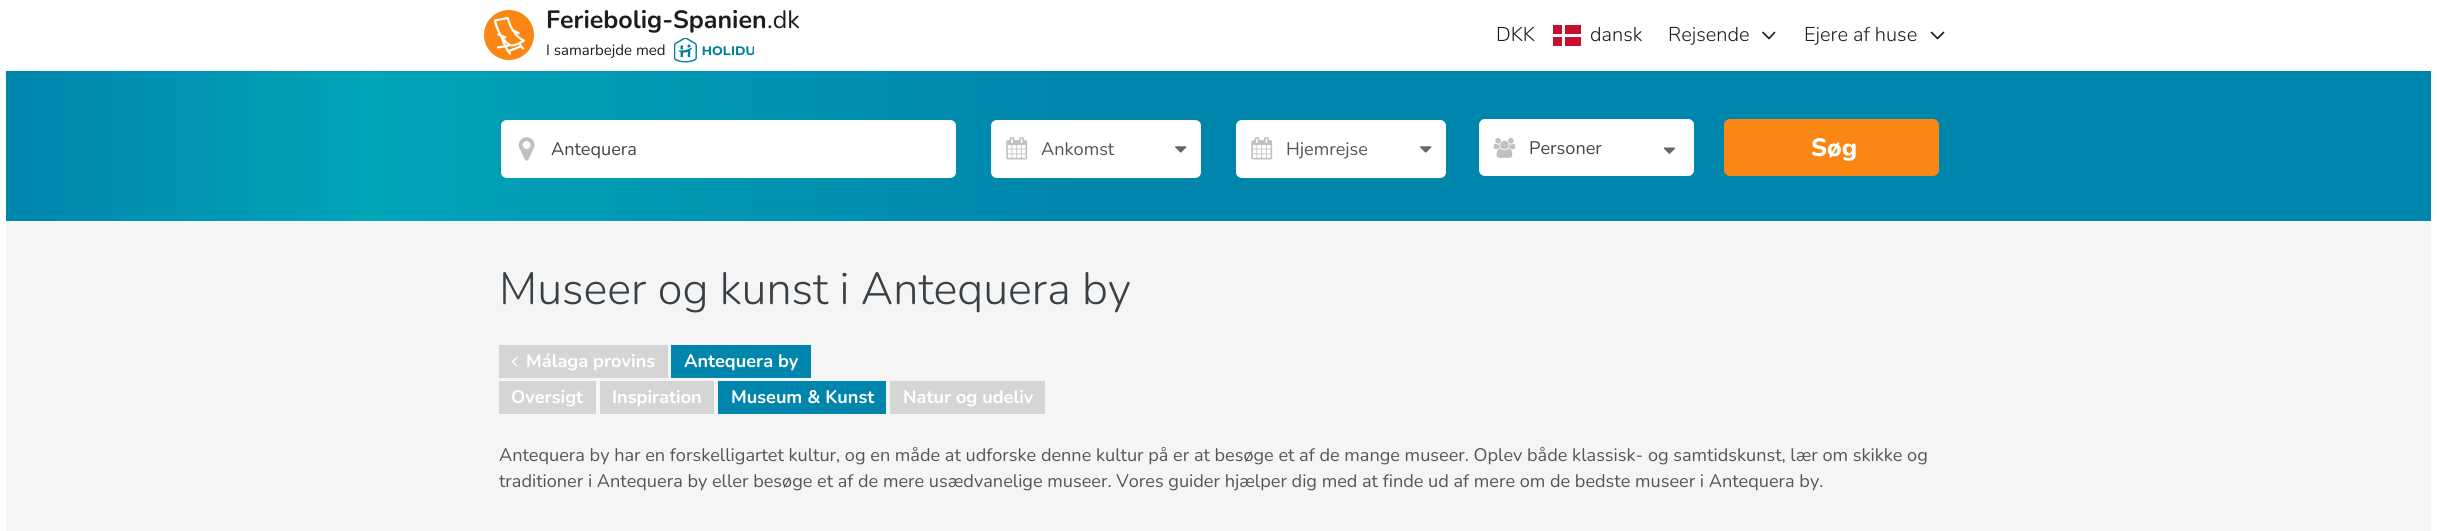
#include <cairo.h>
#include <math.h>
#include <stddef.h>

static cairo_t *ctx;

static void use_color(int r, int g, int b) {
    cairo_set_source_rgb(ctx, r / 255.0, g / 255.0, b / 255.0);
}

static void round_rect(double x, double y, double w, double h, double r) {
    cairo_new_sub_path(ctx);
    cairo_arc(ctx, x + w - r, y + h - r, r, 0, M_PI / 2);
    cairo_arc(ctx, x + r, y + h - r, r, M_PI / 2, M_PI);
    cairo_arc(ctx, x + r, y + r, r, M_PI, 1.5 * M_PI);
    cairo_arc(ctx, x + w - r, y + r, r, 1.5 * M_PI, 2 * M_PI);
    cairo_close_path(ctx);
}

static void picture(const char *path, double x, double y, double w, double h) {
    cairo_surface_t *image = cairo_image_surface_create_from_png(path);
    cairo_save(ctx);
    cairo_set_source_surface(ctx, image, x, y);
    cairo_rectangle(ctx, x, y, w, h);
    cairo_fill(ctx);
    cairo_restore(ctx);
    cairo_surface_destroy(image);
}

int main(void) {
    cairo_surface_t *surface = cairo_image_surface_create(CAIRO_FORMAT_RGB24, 2437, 531);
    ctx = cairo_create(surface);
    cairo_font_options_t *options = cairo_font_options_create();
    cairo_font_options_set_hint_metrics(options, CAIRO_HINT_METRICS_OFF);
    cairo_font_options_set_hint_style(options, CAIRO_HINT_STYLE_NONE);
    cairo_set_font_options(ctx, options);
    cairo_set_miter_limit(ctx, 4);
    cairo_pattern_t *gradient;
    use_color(255, 255, 255);
    cairo_paint(ctx);
    picture("img1.png", 484, 10, 50, 50);
    cairo_select_font_face(ctx, "Nunito", CAIRO_FONT_SLANT_NORMAL, CAIRO_FONT_WEIGHT_BOLD);
    cairo_set_font_size(ctx, 25);
    use_color(29, 29, 29);
    cairo_move_to(ctx, 546, 28);
    cairo_show_text(ctx, "Feriebolig-Spanien");
    cairo_select_font_face(ctx, "Nunito", CAIRO_FONT_SLANT_NORMAL, CAIRO_FONT_WEIGHT_NORMAL);
    cairo_move_to(ctx, 767, 28);
    cairo_show_text(ctx, ".dk");
    cairo_set_font_size(ctx, 15);
    cairo_move_to(ctx, 546, 55);
    cairo_show_text(ctx, "I samarbejde med");
    picture("img2.png", 674, 38, 80, 25);
    cairo_select_font_face(ctx, "Nunito Light", CAIRO_FONT_SLANT_NORMAL, CAIRO_FONT_WEIGHT_NORMAL);
    cairo_set_font_size(ctx, 20);
    cairo_move_to(ctx, 1496, 41);
    cairo_show_text(ctx, "DKK");
    use_color(200, 16, 46);
    cairo_rectangle(ctx, 1553, 25, 28, 21);
    cairo_fill(ctx);
    use_color(255, 255, 255);
    cairo_rectangle(ctx, 1562, 25, 3, 21);
    cairo_fill(ctx);
    cairo_rectangle(ctx, 1553, 34, 28, 3);
    cairo_fill(ctx);
    use_color(29, 29, 29);
    cairo_move_to(ctx, 1590, 41);
    cairo_show_text(ctx, "dansk");
    cairo_move_to(ctx, 1668, 41);
    cairo_show_text(ctx, "Rejsende");
    cairo_new_path(ctx);
    cairo_move_to(ctx, 1774.5, 32.5);
    cairo_line_to(ctx, 1769, 38.5);
    cairo_line_to(ctx, 1763, 32.5);
    cairo_set_line_width(ctx, 1.7);
    cairo_set_line_cap(ctx, CAIRO_LINE_CAP_ROUND);
    cairo_set_line_join(ctx, CAIRO_LINE_JOIN_ROUND);
    cairo_stroke(ctx);
    cairo_move_to(ctx, 1804, 41);
    cairo_show_text(ctx, "Ejere af huse");
    cairo_new_path(ctx);
    cairo_move_to(ctx, 1943.5, 32.5);
    cairo_line_to(ctx, 1937.5, 38.5);
    cairo_line_to(ctx, 1931.5, 32.5);
    cairo_stroke(ctx);
    gradient = cairo_pattern_create_linear(6.2, 146, 2431, 146);
    cairo_pattern_add_color_stop_rgba(gradient, 0, 0, 0.522, 0.678, 1);
    cairo_pattern_add_color_stop_rgba(gradient, 0.15, 0, 0.647, 0.722, 1);
    cairo_pattern_add_color_stop_rgba(gradient, 0.45, 0, 0.522, 0.678, 1);
    cairo_set_source(ctx, gradient);
    cairo_pattern_destroy(gradient);
    cairo_rectangle(ctx, 6, 71, 2425, 150);
    cairo_fill(ctx);
    use_color(255, 255, 255);
    cairo_new_path(ctx);
    cairo_move_to(ctx, 507, 120);
    cairo_line_to(ctx, 551, 120);
    cairo_line_to(ctx, 551, 178);
    cairo_line_to(ctx, 507, 178);
    cairo_curve_to(ctx, 503.5, 178, 501, 175.5, 501, 172);
    cairo_line_to(ctx, 501, 126);
    cairo_curve_to(ctx, 501, 122.5, 503.5, 120, 507, 120);
    cairo_close_path(ctx);
    cairo_fill(ctx);
    picture("img3.png", 518, 137, 17, 24);
    cairo_new_path(ctx);
    cairo_move_to(ctx, 551, 120);
    cairo_line_to(ctx, 950, 120);
    cairo_curve_to(ctx, 953.5, 120, 956, 122.5, 956, 126);
    cairo_line_to(ctx, 956, 172);
    cairo_curve_to(ctx, 956, 175.5, 953.5, 178, 950, 178);
    cairo_line_to(ctx, 551, 178);
    cairo_close_path(ctx);
    cairo_fill(ctx);
    cairo_select_font_face(ctx, "Nunito", CAIRO_FONT_SLANT_NORMAL, CAIRO_FONT_WEIGHT_NORMAL);
    cairo_set_font_size(ctx, 18.12);
    use_color(68, 68, 68);
    cairo_move_to(ctx, 551, 155);
    cairo_show_text(ctx, "Antequera");
    use_color(255, 255, 255);
    cairo_new_path(ctx);
    cairo_move_to(ctx, 997, 120);
    cairo_line_to(ctx, 1041, 120);
    cairo_line_to(ctx, 1041, 178);
    cairo_line_to(ctx, 997, 178);
    cairo_curve_to(ctx, 993.5, 178, 991, 175.5, 991, 172);
    cairo_line_to(ctx, 991, 126);
    cairo_curve_to(ctx, 991, 122.5, 993.5, 120, 997, 120);
    cairo_close_path(ctx);
    cairo_fill(ctx);
    picture("img4.png", 1006, 137, 22, 23);
    cairo_rectangle(ctx, 1041, 120, 132, 58);
    cairo_fill(ctx);
    use_color(85, 85, 85);
    cairo_move_to(ctx, 1041, 155);
    cairo_show_text(ctx, "Ankomst");
    use_color(255, 255, 255);
    cairo_new_path(ctx);
    cairo_move_to(ctx, 1173, 120);
    cairo_line_to(ctx, 1195, 120);
    cairo_curve_to(ctx, 1198.5, 120, 1201, 122.5, 1201, 126);
    cairo_line_to(ctx, 1201, 172);
    cairo_curve_to(ctx, 1201, 175.5, 1198.5, 178, 1195, 178);
    cairo_line_to(ctx, 1173, 178);
    cairo_close_path(ctx);
    cairo_fill(ctx);
    picture("img5.png", 1175, 146, 12, 7);
    cairo_new_path(ctx);
    cairo_move_to(ctx, 1242, 120);
    cairo_line_to(ctx, 1286, 120);
    cairo_line_to(ctx, 1286, 178);
    cairo_line_to(ctx, 1242, 178);
    cairo_curve_to(ctx, 1238.5, 178, 1236, 175.5, 1236, 172);
    cairo_line_to(ctx, 1236, 126);
    cairo_curve_to(ctx, 1236, 122.5, 1238.5, 120, 1242, 120);
    cairo_close_path(ctx);
    cairo_fill(ctx);
    picture("img4.png", 1251, 137, 22, 23);
    cairo_rectangle(ctx, 1286, 120, 132, 58);
    cairo_fill(ctx);
    use_color(85, 85, 85);
    cairo_move_to(ctx, 1286, 155);
    cairo_show_text(ctx, "Hjemrejse");
    use_color(255, 255, 255);
    cairo_new_path(ctx);
    cairo_move_to(ctx, 1418, 120);
    cairo_line_to(ctx, 1440, 120);
    cairo_curve_to(ctx, 1443.5, 120, 1446, 122.5, 1446, 126);
    cairo_line_to(ctx, 1446, 172);
    cairo_curve_to(ctx, 1446, 175.5, 1443.5, 178, 1440, 178);
    cairo_line_to(ctx, 1418, 178);
    cairo_close_path(ctx);
    cairo_fill(ctx);
    picture("img5.png", 1420, 146, 12, 7);
    round_rect(1479, 119, 215, 57, 6);
    cairo_fill(ctx);
    picture("img6.png", 1493, 137, 23, 21);
    use_color(68, 68, 68);
    cairo_move_to(ctx, 1529, 154);
    cairo_show_text(ctx, "Personer");
    picture("img7.png", 1663, 147, 13, 7);
    use_color(250, 134, 19);
    round_rect(1724, 119, 215, 57, 6);
    cairo_fill(ctx);
    cairo_select_font_face(ctx, "Nunito ExtraBold", CAIRO_FONT_SLANT_NORMAL, CAIRO_FONT_WEIGHT_NORMAL);
    cairo_set_font_size(ctx, 25);
    use_color(255, 255, 255);
    cairo_move_to(ctx, 1811, 156);
    cairo_show_text(ctx, "Søg");
    use_color(245, 245, 245);
    cairo_rectangle(ctx, 6, 221, 2425, 310);
    cairo_fill(ctx);
    cairo_select_font_face(ctx, "Nunito Light", CAIRO_FONT_SLANT_NORMAL, CAIRO_FONT_WEIGHT_NORMAL);
    cairo_set_font_size(ctx, 45);
    use_color(57, 65, 71);
    cairo_move_to(ctx, 499, 304);
    cairo_show_text(ctx, "Museer og kunst i Antequera by");
    use_color(213, 213, 213);
    cairo_rectangle(ctx, 499, 345, 169, 33);
    cairo_fill(ctx);
    picture("img8.png", 511, 356, 7, 11);
    cairo_select_font_face(ctx, "Nunito", CAIRO_FONT_SLANT_NORMAL, CAIRO_FONT_WEIGHT_BOLD);
    cairo_set_font_size(ctx, 18.12);
    use_color(255, 255, 255);
    cairo_move_to(ctx, 526, 367);
    cairo_show_text(ctx, "Málaga provins");
    use_color(0, 133, 173);
    cairo_rectangle(ctx, 671, 345, 140, 33);
    cairo_fill(ctx);
    use_color(255, 255, 255);
    cairo_move_to(ctx, 684, 367);
    cairo_show_text(ctx, "Antequera by");
    use_color(213, 213, 213);
    cairo_rectangle(ctx, 499, 381, 97, 33);
    cairo_fill(ctx);
    use_color(255, 255, 255);
    cairo_move_to(ctx, 511, 403);
    cairo_show_text(ctx, "Oversigt");
    use_color(213, 213, 213);
    cairo_rectangle(ctx, 600, 381, 114, 33);
    cairo_fill(ctx);
    use_color(255, 255, 255);
    cairo_move_to(ctx, 612, 403);
    cairo_show_text(ctx, "Inspiration");
    use_color(0, 133, 173);
    cairo_rectangle(ctx, 718, 381, 168, 33);
    cairo_fill(ctx);
    use_color(255, 255, 255);
    cairo_move_to(ctx, 731, 403);
    cairo_show_text(ctx, "Museum & Kunst");
    use_color(213, 213, 213);
    cairo_rectangle(ctx, 890, 381, 155, 33);
    cairo_fill(ctx);
    use_color(255, 255, 255);
    cairo_move_to(ctx, 903, 403);
    cairo_show_text(ctx, "Natur og udeliv");
    cairo_select_font_face(ctx, "Nunito", CAIRO_FONT_SLANT_NORMAL, CAIRO_FONT_WEIGHT_NORMAL);
    use_color(85, 85, 85);
    cairo_move_to(ctx, 499, 461);
    cairo_show_text(ctx, "Antequera by har en forskelligartet kultur, og en måde at udforske denne kultur på er at besøge et af de mange museer. Oplev både klassisk- og samtidskunst, lær om skikke og");
    cairo_move_to(ctx, 499, 487);
    cairo_show_text(ctx, "traditioner i Antequera by eller besøge et af de mere usædvanelige museer. Vores guider hjælper dig med at finde ud af mere om de bedste museer i Antequera by.");
    cairo_surface_write_to_png(surface, "result.png");
    cairo_font_options_destroy(options);
    cairo_destroy(ctx);
    cairo_surface_destroy(surface);
    return 0;
}
